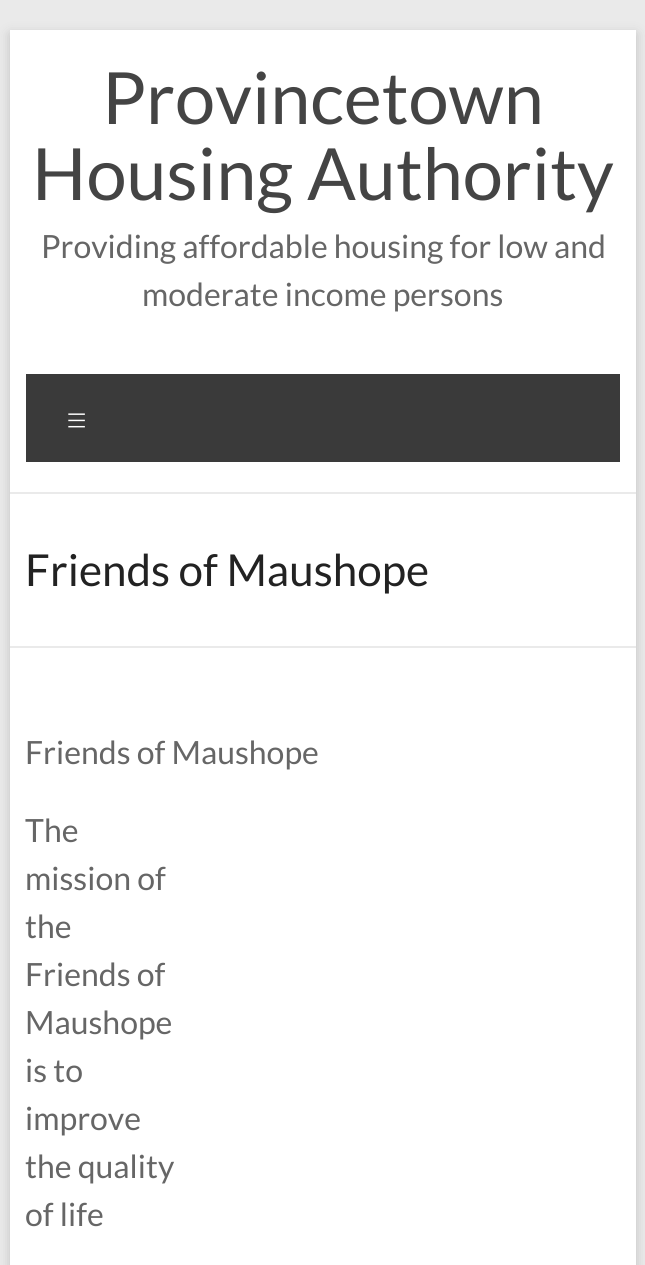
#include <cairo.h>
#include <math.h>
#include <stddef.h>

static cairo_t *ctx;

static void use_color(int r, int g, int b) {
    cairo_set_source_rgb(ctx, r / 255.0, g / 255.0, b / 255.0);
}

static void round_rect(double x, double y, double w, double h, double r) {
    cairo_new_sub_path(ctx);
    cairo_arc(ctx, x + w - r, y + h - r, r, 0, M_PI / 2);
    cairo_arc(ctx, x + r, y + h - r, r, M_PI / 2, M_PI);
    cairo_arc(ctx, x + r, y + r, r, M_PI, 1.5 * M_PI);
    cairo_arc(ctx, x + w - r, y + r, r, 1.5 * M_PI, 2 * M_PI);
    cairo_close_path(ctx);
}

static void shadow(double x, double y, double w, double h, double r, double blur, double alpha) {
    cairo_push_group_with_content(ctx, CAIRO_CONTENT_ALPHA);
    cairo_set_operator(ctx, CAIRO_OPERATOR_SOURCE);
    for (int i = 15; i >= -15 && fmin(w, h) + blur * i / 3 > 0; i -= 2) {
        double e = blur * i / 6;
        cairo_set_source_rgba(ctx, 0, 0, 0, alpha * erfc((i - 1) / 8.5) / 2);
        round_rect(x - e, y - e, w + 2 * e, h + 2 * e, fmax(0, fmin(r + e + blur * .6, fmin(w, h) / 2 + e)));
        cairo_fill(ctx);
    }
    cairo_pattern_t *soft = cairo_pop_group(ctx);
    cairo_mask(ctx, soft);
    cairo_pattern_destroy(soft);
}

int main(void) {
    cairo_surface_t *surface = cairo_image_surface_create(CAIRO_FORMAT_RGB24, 645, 1265);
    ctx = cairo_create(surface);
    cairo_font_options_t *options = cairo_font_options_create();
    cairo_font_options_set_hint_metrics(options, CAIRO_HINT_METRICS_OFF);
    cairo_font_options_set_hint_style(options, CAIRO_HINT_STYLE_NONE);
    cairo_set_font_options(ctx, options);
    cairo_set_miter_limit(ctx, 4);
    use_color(234, 234, 234);
    cairo_paint(ctx);
    use_color(100, 100, 100);
    shadow(10, 34, 626, 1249, 0, 6, 0.3);
    use_color(255, 255, 255);
    cairo_rectangle(ctx, 10, 30, 626, 1235);
    cairo_fill(ctx);
    use_color(234, 234, 234);
    cairo_rectangle(ctx, 10, 492, 626, 2);
    cairo_fill(ctx);
    cairo_select_font_face(ctx, "Lato", CAIRO_FONT_SLANT_NORMAL, CAIRO_FONT_WEIGHT_NORMAL);
    cairo_set_font_size(ctx, 72);
    use_color(68, 68, 68);
    cairo_move_to(ctx, 102, 124);
    cairo_show_text(ctx, "Provincetown");
    cairo_move_to(ctx, 32, 200);
    cairo_show_text(ctx, "Housing Authority");
    cairo_set_font_size(ctx, 32);
    use_color(102, 102, 102);
    cairo_move_to(ctx, 41, 258);
    cairo_show_text(ctx, "Providing affordable housing for low and");
    cairo_move_to(ctx, 142, 306);
    cairo_show_text(ctx, "moderate income persons");
    use_color(58, 58, 58);
    cairo_rectangle(ctx, 26, 374, 594, 88);
    cairo_fill(ctx);
    cairo_select_font_face(ctx, "Lato Light", CAIRO_FONT_SLANT_NORMAL, CAIRO_FONT_WEIGHT_NORMAL);
    cairo_set_font_size(ctx, 40);
    use_color(255, 255, 255);
    cairo_move_to(ctx, 65, 434);
    cairo_show_text(ctx, "≡");
    use_color(234, 234, 234);
    cairo_rectangle(ctx, 10, 646, 626, 2);
    cairo_fill(ctx);
    cairo_select_font_face(ctx, "Lato", CAIRO_FONT_SLANT_NORMAL, CAIRO_FONT_WEIGHT_NORMAL);
    cairo_set_font_size(ctx, 44);
    use_color(34, 34, 34);
    cairo_move_to(ctx, 25, 586);
    cairo_show_text(ctx, "Friends of Maushope");
    cairo_set_font_size(ctx, 32);
    use_color(102, 102, 102);
    cairo_move_to(ctx, 25, 764);
    cairo_show_text(ctx, "Friends of Maushope");
    cairo_move_to(ctx, 25, 842);
    cairo_show_text(ctx, "The");
    cairo_move_to(ctx, 25, 890);
    cairo_show_text(ctx, "mission of");
    cairo_move_to(ctx, 25, 938);
    cairo_show_text(ctx, "the");
    cairo_move_to(ctx, 25, 986);
    cairo_show_text(ctx, "Friends of");
    cairo_move_to(ctx, 25, 1034);
    cairo_show_text(ctx, "Maushope");
    cairo_move_to(ctx, 25, 1082);
    cairo_show_text(ctx, "is to");
    cairo_move_to(ctx, 25, 1130);
    cairo_show_text(ctx, "improve");
    cairo_move_to(ctx, 25, 1178);
    cairo_show_text(ctx, "the quality");
    cairo_move_to(ctx, 25, 1226);
    cairo_show_text(ctx, "of life");
    cairo_surface_write_to_png(surface, "result.png");
    cairo_font_options_destroy(options);
    cairo_destroy(ctx);
    cairo_surface_destroy(surface);
    return 0;
}
